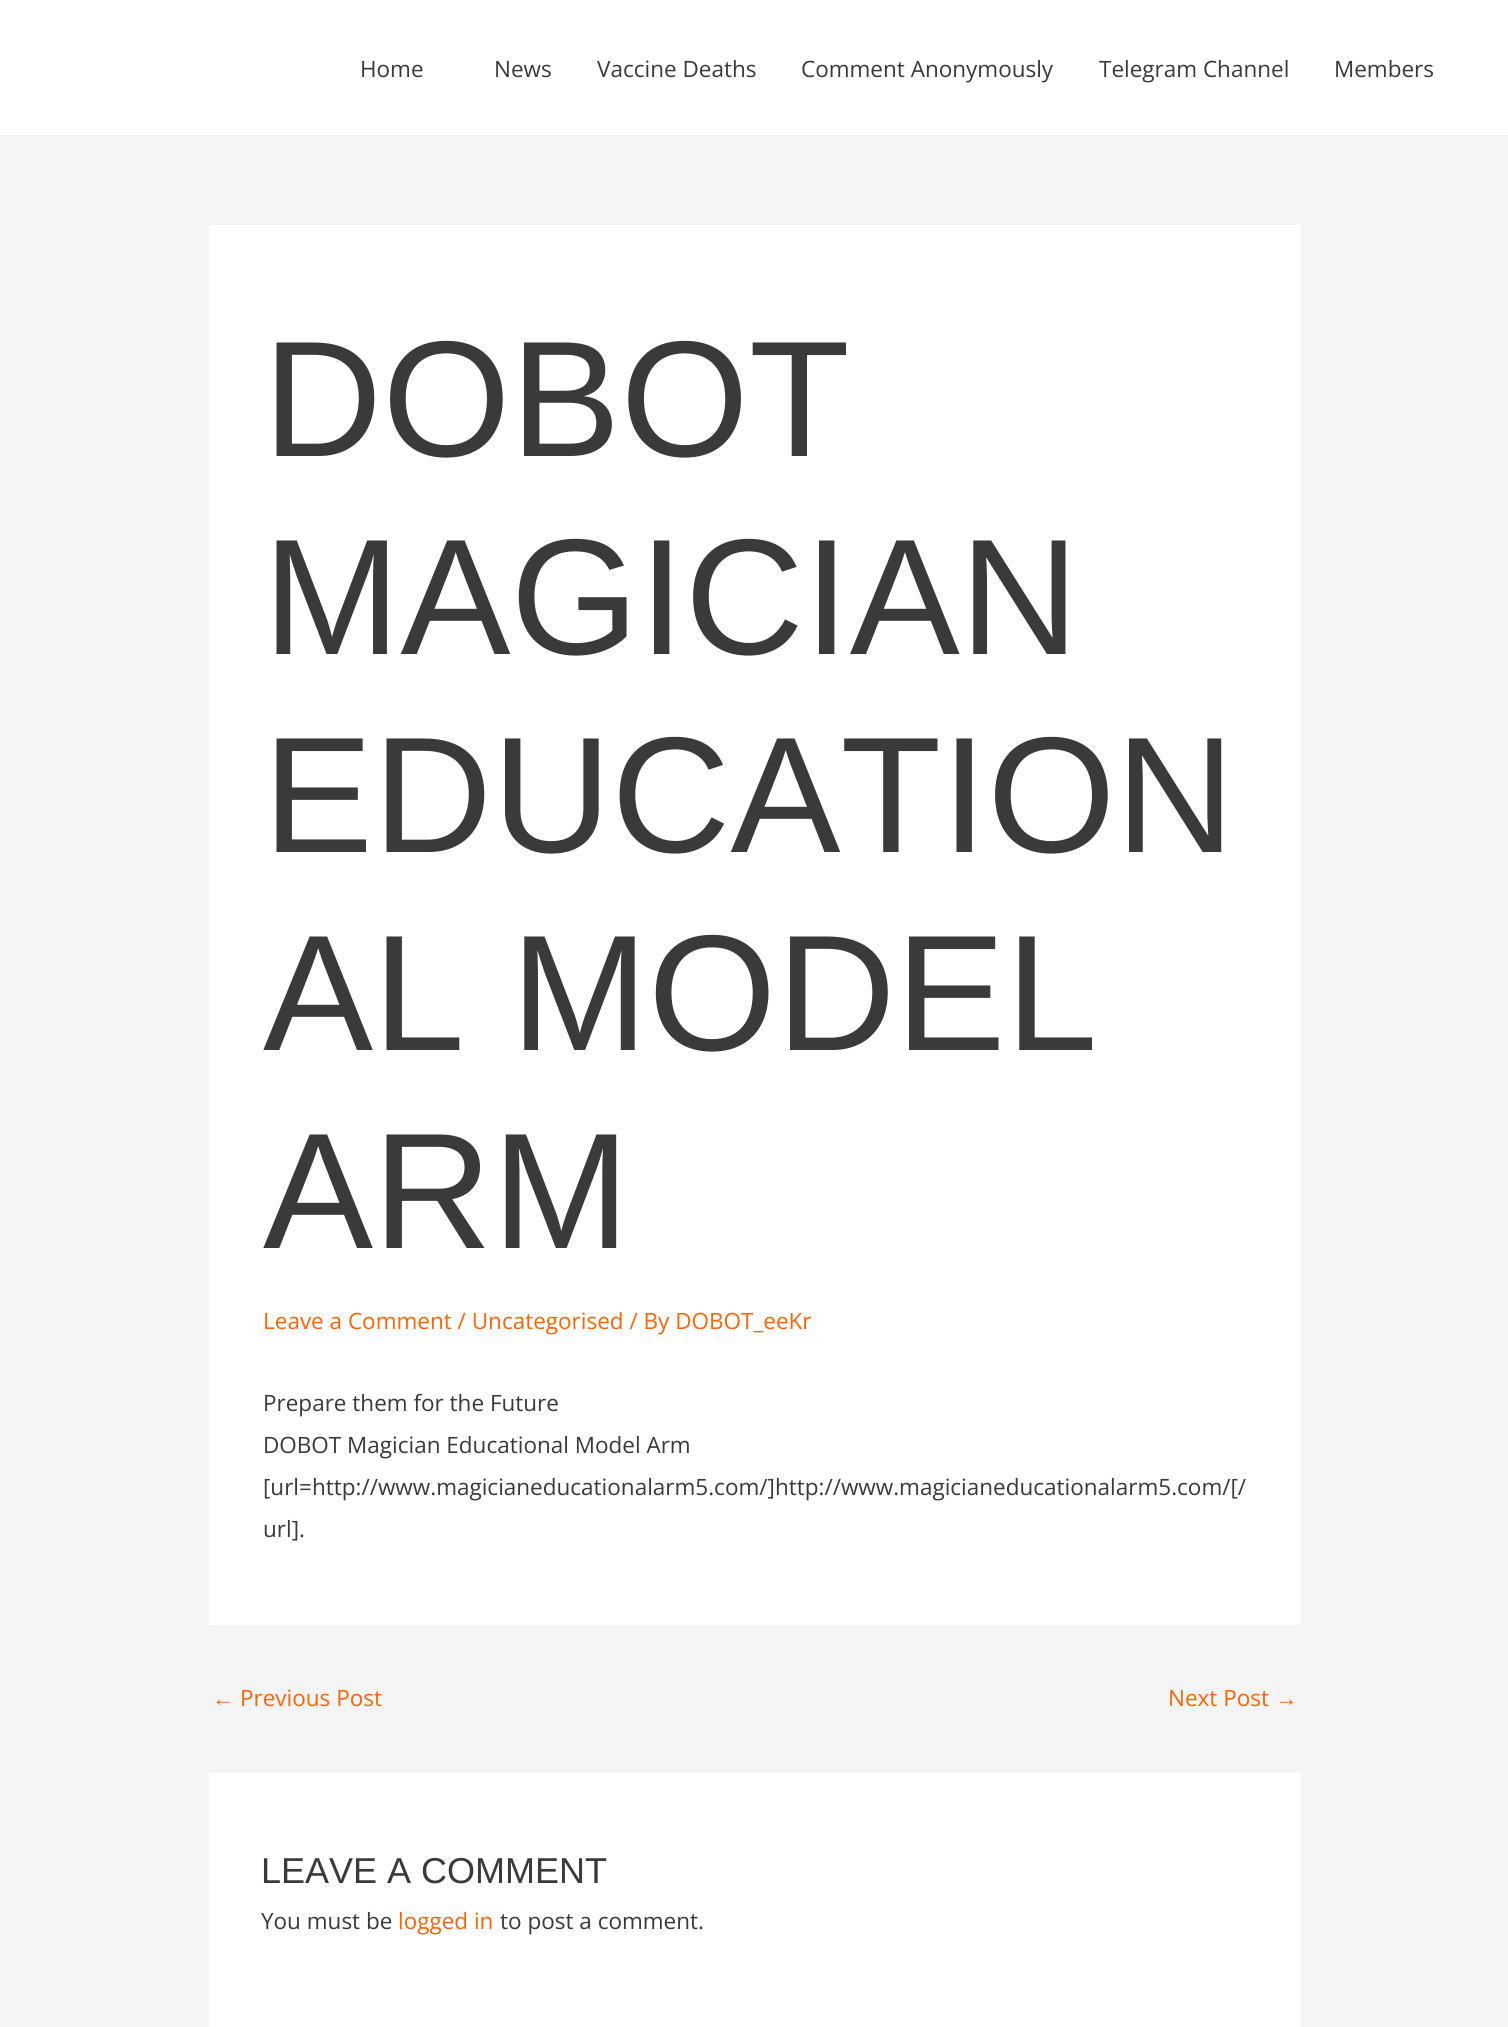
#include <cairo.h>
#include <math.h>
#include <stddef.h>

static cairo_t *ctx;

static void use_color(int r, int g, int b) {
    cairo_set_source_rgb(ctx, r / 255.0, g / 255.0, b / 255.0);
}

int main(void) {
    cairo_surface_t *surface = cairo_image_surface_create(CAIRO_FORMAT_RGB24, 1508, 2027);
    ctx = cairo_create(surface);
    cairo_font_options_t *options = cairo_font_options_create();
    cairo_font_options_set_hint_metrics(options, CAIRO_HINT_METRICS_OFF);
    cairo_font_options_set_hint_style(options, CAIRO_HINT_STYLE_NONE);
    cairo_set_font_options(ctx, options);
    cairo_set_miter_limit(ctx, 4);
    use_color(245, 245, 245);
    cairo_paint(ctx);
    use_color(255, 255, 255);
    cairo_rectangle(ctx, 0, 0, 1508, 135);
    cairo_fill(ctx);
    cairo_select_font_face(ctx, "Open Sans", CAIRO_FONT_SLANT_NORMAL, CAIRO_FONT_WEIGHT_NORMAL);
    cairo_set_font_size(ctx, 22.5);
    use_color(58, 58, 58);
    cairo_move_to(ctx, 360, 77);
    cairo_show_text(ctx, "Home");
    cairo_move_to(ctx, 494, 77);
    cairo_show_text(ctx, "News");
    cairo_move_to(ctx, 597, 77);
    cairo_show_text(ctx, "Vaccine Deaths");
    cairo_move_to(ctx, 801, 77);
    cairo_show_text(ctx, "Comment Anonymously");
    cairo_move_to(ctx, 1099, 77);
    cairo_show_text(ctx, "Telegram Channel");
    cairo_move_to(ctx, 1334, 77);
    cairo_show_text(ctx, "Members");
    use_color(255, 255, 255);
    cairo_rectangle(ctx, 209, 225, 1092, 1400);
    cairo_fill(ctx);
    cairo_select_font_face(ctx, "Liberation Sans", CAIRO_FONT_SLANT_NORMAL, CAIRO_FONT_WEIGHT_NORMAL);
    cairo_set_font_size(ctx, 165);
    use_color(58, 58, 58);
    cairo_move_to(ctx, 263, 456);
    cairo_show_text(ctx, "DOBOT");
    cairo_move_to(ctx, 263, 654);
    cairo_show_text(ctx, "MAGICIAN");
    cairo_move_to(ctx, 263, 852);
    cairo_show_text(ctx, "EDUCATION");
    cairo_move_to(ctx, 263, 1050);
    cairo_show_text(ctx, "AL MODEL");
    cairo_move_to(ctx, 263, 1248);
    cairo_show_text(ctx, "ARM");
    cairo_select_font_face(ctx, "Open Sans", CAIRO_FONT_SLANT_NORMAL, CAIRO_FONT_WEIGHT_NORMAL);
    cairo_set_font_size(ctx, 22.5);
    use_color(255, 101, 8);
    cairo_move_to(ctx, 263, 1329);
    cairo_show_text(ctx, "Leave a Comment / Uncategorised / By DOBOT_eeKr");
    use_color(58, 58, 58);
    cairo_move_to(ctx, 263, 1411);
    cairo_show_text(ctx, "Prepare them for the Future");
    cairo_move_to(ctx, 263, 1453);
    cairo_show_text(ctx, "DOBOT Magician Educational Model Arm");
    cairo_move_to(ctx, 263, 1495);
    cairo_show_text(ctx, "[url=http://www.magicianeducationalarm5.com/]http://www.magicianeducationalarm5.com/[/");
    cairo_move_to(ctx, 263, 1537);
    cairo_show_text(ctx, "url].");
    cairo_select_font_face(ctx, "Liberation Sans", CAIRO_FONT_SLANT_NORMAL, CAIRO_FONT_WEIGHT_NORMAL);
    use_color(255, 101, 8);
    cairo_move_to(ctx, 212, 1706);
    cairo_show_text(ctx, "←");
    cairo_select_font_face(ctx, "Open Sans", CAIRO_FONT_SLANT_NORMAL, CAIRO_FONT_WEIGHT_NORMAL);
    cairo_move_to(ctx, 240, 1706);
    cairo_show_text(ctx, "Previous Post");
    cairo_move_to(ctx, 1168, 1706);
    cairo_show_text(ctx, "Next Post");
    cairo_select_font_face(ctx, "Liberation Sans", CAIRO_FONT_SLANT_NORMAL, CAIRO_FONT_WEIGHT_NORMAL);
    cairo_move_to(ctx, 1275, 1706);
    cairo_show_text(ctx, "→");
    use_color(255, 255, 255);
    cairo_rectangle(ctx, 209, 1773, 1092, 254);
    cairo_fill(ctx);
    cairo_set_font_size(ctx, 36);
    use_color(58, 58, 58);
    cairo_move_to(ctx, 261, 1883);
    cairo_show_text(ctx, "LEAVE A COMMENT");
    cairo_select_font_face(ctx, "Open Sans", CAIRO_FONT_SLANT_NORMAL, CAIRO_FONT_WEIGHT_NORMAL);
    cairo_set_font_size(ctx, 22.5);
    cairo_move_to(ctx, 261, 1929);
    cairo_show_text(ctx, "You must be");
    use_color(255, 101, 8);
    cairo_move_to(ctx, 398, 1929);
    cairo_show_text(ctx, "logged in");
    use_color(58, 58, 58);
    cairo_move_to(ctx, 500, 1929);
    cairo_show_text(ctx, "to post a comment.");
    cairo_surface_write_to_png(surface, "result.png");
    cairo_font_options_destroy(options);
    cairo_destroy(ctx);
    cairo_surface_destroy(surface);
    return 0;
}
